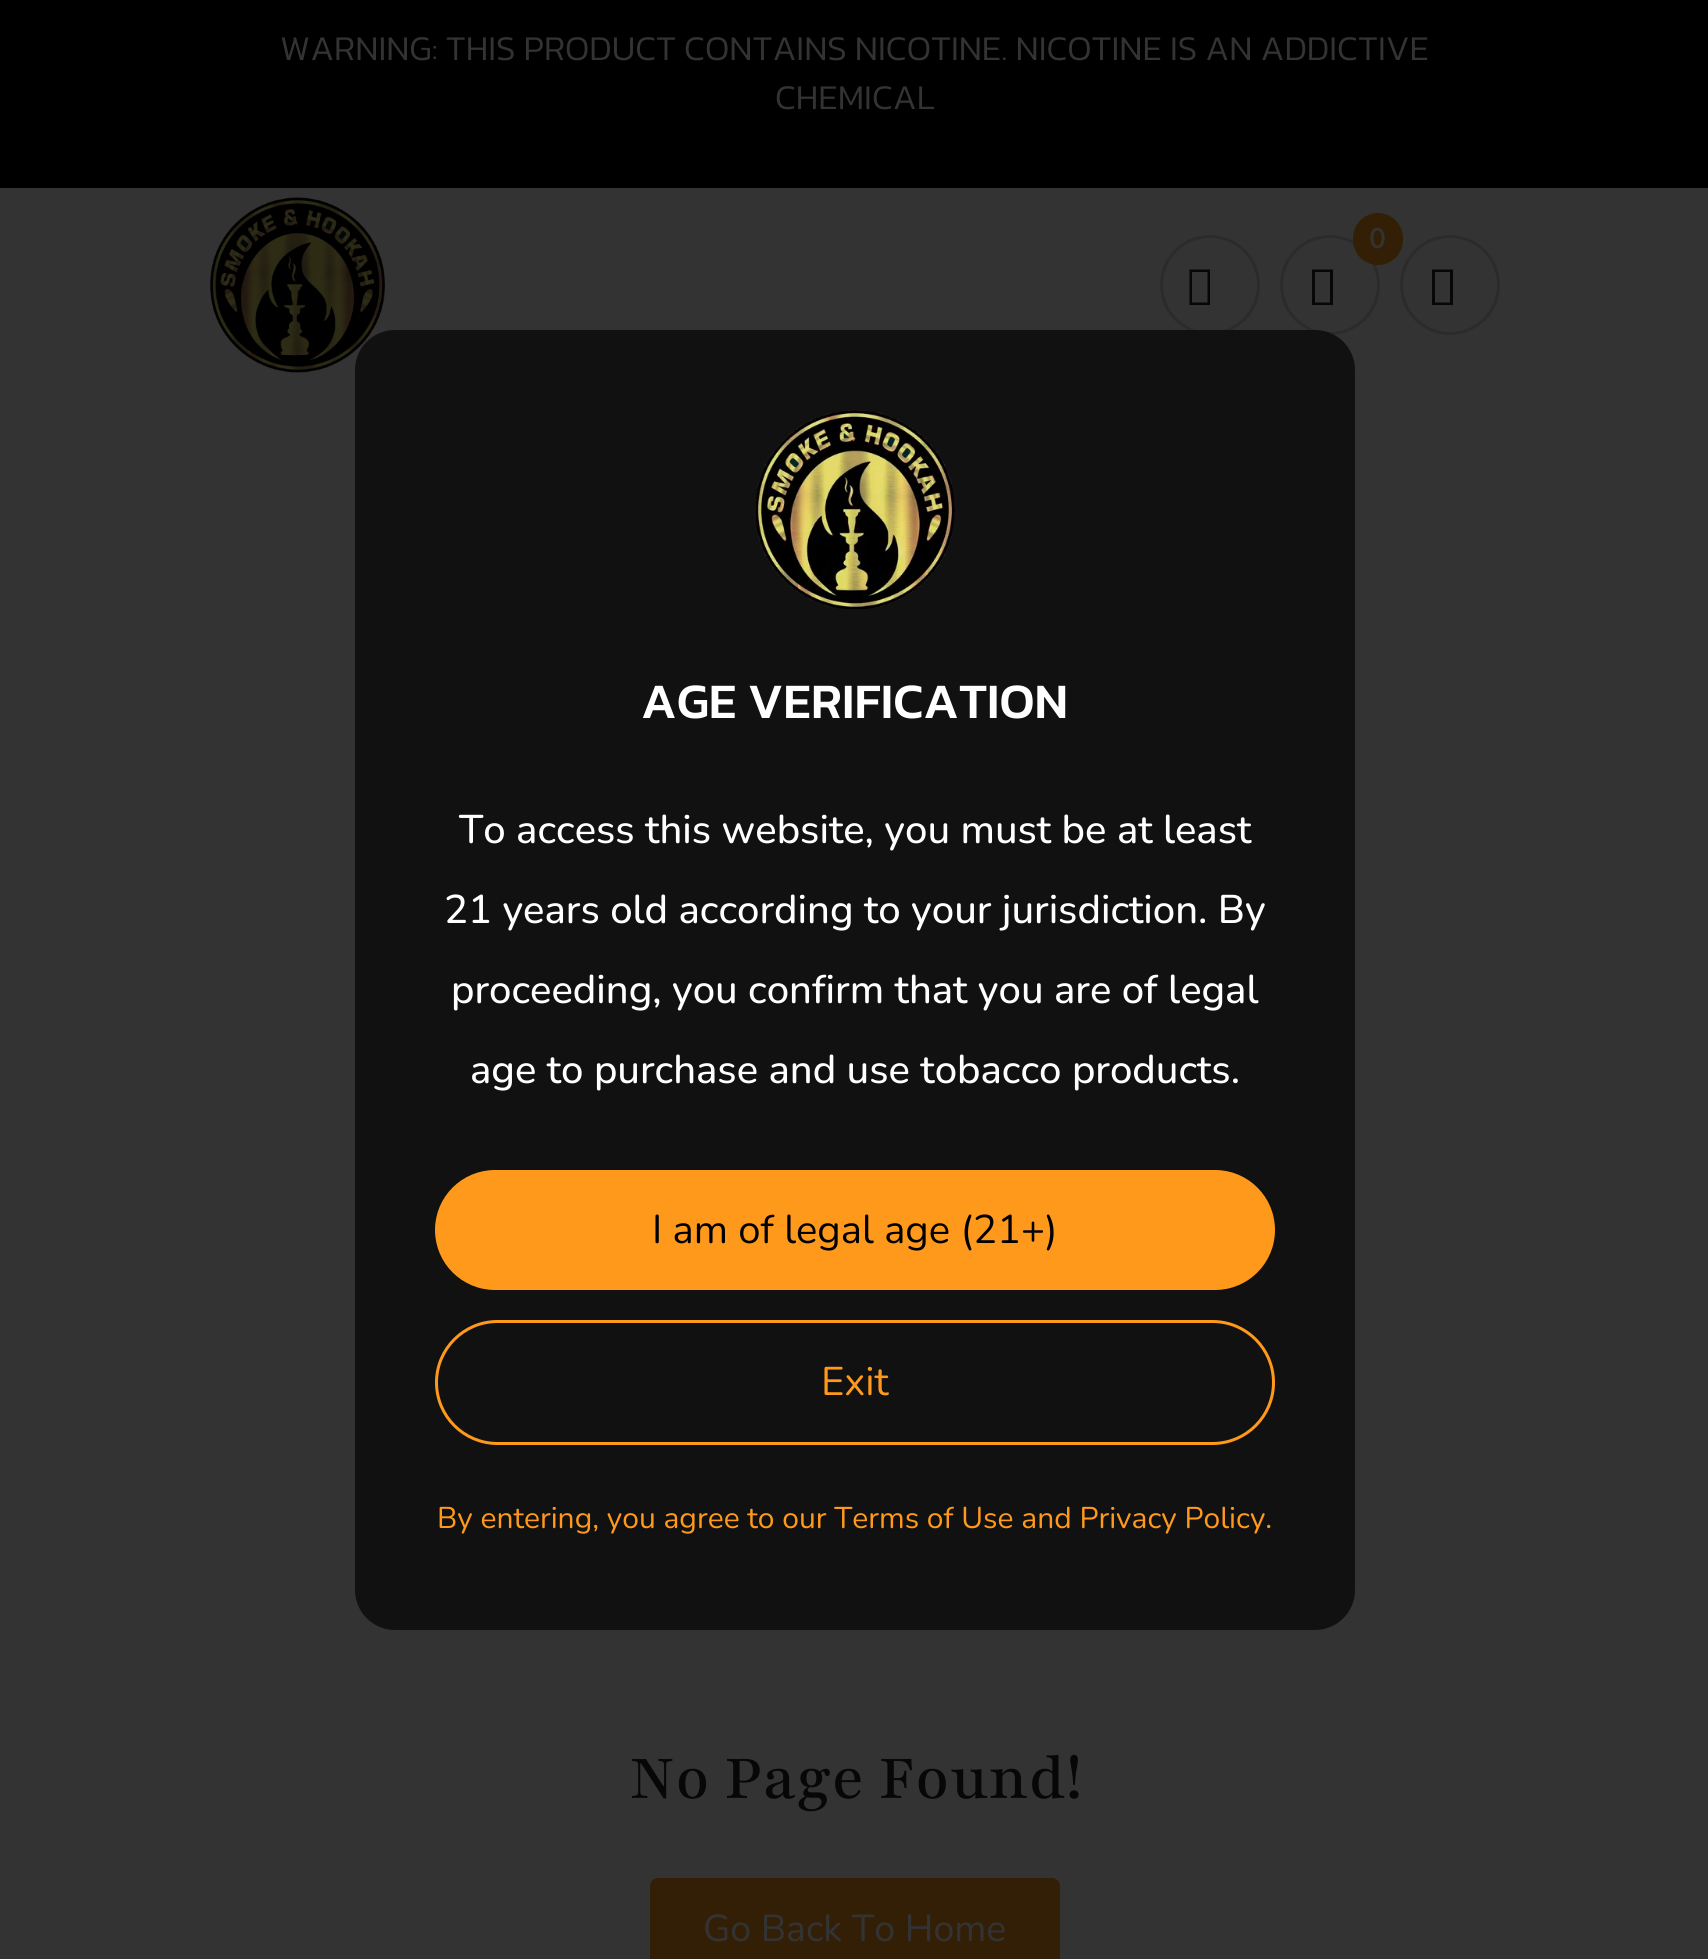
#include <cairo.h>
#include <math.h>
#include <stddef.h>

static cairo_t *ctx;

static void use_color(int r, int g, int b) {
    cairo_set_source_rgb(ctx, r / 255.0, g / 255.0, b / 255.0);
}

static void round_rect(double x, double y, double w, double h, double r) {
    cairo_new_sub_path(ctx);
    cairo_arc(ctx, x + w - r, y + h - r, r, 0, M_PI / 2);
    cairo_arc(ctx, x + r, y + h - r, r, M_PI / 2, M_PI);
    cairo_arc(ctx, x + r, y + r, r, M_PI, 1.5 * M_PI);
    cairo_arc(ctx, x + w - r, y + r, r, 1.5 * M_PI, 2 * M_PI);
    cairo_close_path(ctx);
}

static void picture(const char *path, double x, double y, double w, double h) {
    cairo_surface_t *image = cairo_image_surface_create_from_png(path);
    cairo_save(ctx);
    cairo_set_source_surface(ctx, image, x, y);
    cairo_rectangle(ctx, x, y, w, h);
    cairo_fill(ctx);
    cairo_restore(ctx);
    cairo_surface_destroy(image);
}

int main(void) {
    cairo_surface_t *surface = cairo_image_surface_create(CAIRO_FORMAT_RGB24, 1708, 1959);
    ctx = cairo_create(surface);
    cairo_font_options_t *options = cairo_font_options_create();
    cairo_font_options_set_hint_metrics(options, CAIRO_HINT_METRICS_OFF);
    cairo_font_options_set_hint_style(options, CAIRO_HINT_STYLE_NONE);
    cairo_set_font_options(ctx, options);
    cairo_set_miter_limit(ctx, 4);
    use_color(51, 51, 51);
    cairo_paint(ctx);
    use_color(0, 0, 0);
    cairo_rectangle(ctx, 0, 0, 1708, 188);
    cairo_fill(ctx);
    cairo_select_font_face(ctx, "Kanit Light", CAIRO_FONT_SLANT_NORMAL, CAIRO_FONT_WEIGHT_NORMAL);
    cairo_set_font_size(ctx, 35);
    use_color(51, 51, 51);
    cairo_move_to(ctx, 280, 60);
    cairo_show_text(ctx, "WARNING: THIS PRODUCT CONTAINS NICOTINE. NICOTINE IS AN ADDICTIVE");
    cairo_move_to(ctx, 775, 109);
    cairo_show_text(ctx, "CHEMICAL");
    picture("img1.png", 210, 197, 175, 176);
    cairo_arc(ctx, 1210, 285, 48.5, 0, 2 * M_PI);
    use_color(43, 43, 43);
    cairo_set_line_width(ctx, 3);
    cairo_stroke(ctx);
    use_color(7, 7, 7);
    cairo_new_path(ctx);
    cairo_move_to(ctx, 1189.5, 305);
    cairo_line_to(ctx, 1189.5, 269.5);
    cairo_line_to(ctx, 1210, 269.5);
    cairo_line_to(ctx, 1210, 305);
    cairo_close_path(ctx);
    cairo_move_to(ctx, 1192, 302.5);
    cairo_line_to(ctx, 1207.5, 302.5);
    cairo_line_to(ctx, 1207.5, 272);
    cairo_line_to(ctx, 1192, 272);
    cairo_close_path(ctx);
    cairo_fill(ctx);
    cairo_arc(ctx, 1330, 285, 48.5, 0, 2 * M_PI);
    use_color(43, 43, 43);
    cairo_stroke(ctx);
    cairo_arc(ctx, 1450, 285, 48.5, 0, 2 * M_PI);
    cairo_stroke(ctx);
    use_color(51, 31, 6);
    round_rect(1353, 213, 50, 52, 25);
    cairo_fill(ctx);
    cairo_select_font_face(ctx, "Futura PT Medium", CAIRO_FONT_SLANT_NORMAL, CAIRO_FONT_WEIGHT_NORMAL);
    cairo_set_font_size(ctx, 30);
    use_color(51, 51, 51);
    cairo_move_to(ctx, 1369, 248);
    cairo_show_text(ctx, "0");
    use_color(7, 7, 7);
    cairo_new_path(ctx);
    cairo_move_to(ctx, 1312, 305);
    cairo_line_to(ctx, 1312, 269.5);
    cairo_line_to(ctx, 1333, 269.5);
    cairo_line_to(ctx, 1333, 305);
    cairo_close_path(ctx);
    cairo_move_to(ctx, 1315, 302.5);
    cairo_line_to(ctx, 1330, 302.5);
    cairo_line_to(ctx, 1330, 272);
    cairo_line_to(ctx, 1315, 272);
    cairo_close_path(ctx);
    cairo_fill(ctx);
    cairo_new_path(ctx);
    cairo_move_to(ctx, 1432, 305);
    cairo_line_to(ctx, 1432, 269.5);
    cairo_line_to(ctx, 1453, 269.5);
    cairo_line_to(ctx, 1453, 305);
    cairo_close_path(ctx);
    cairo_move_to(ctx, 1435, 302.5);
    cairo_line_to(ctx, 1450, 302.5);
    cairo_line_to(ctx, 1450, 272);
    cairo_line_to(ctx, 1435, 272);
    cairo_close_path(ctx);
    cairo_fill(ctx);
    use_color(17, 17, 17);
    round_rect(355, 330, 1000, 1300, 40);
    cairo_fill(ctx);
    picture("img2.png", 755, 410, 200, 200);
    cairo_select_font_face(ctx, "Kanit Medium", CAIRO_FONT_SLANT_NORMAL, CAIRO_FONT_WEIGHT_NORMAL);
    cairo_set_font_size(ctx, 50);
    use_color(255, 255, 255);
    cairo_move_to(ctx, 641, 718);
    cairo_show_text(ctx, "AGE VERIFICATION");
    cairo_select_font_face(ctx, "Nunito Medium", CAIRO_FONT_SLANT_NORMAL, CAIRO_FONT_WEIGHT_NORMAL);
    cairo_set_font_size(ctx, 40);
    cairo_move_to(ctx, 459, 843);
    cairo_show_text(ctx, "To access this website, you must be at least");
    cairo_move_to(ctx, 444, 923);
    cairo_show_text(ctx, "21 years old according to your jurisdiction. By");
    cairo_move_to(ctx, 451, 1003);
    cairo_show_text(ctx, "proceeding, you confirm that you are of legal");
    cairo_move_to(ctx, 470, 1083);
    cairo_show_text(ctx, "age to purchase and use tobacco products.");
    use_color(255, 153, 28);
    round_rect(435, 1170, 840, 120, 60);
    cairo_fill(ctx);
    cairo_select_font_face(ctx, "Nunito", CAIRO_FONT_SLANT_NORMAL, CAIRO_FONT_WEIGHT_NORMAL);
    use_color(0, 0, 0);
    cairo_move_to(ctx, 652, 1243);
    cairo_show_text(ctx, "I am of legal age (21+)");
    round_rect(436.5, 1321.5, 837, 122, 61);
    use_color(255, 153, 28);
    cairo_stroke(ctx);
    cairo_move_to(ctx, 821, 1395);
    cairo_show_text(ctx, "Exit");
    cairo_set_font_size(ctx, 30);
    cairo_move_to(ctx, 437, 1528);
    cairo_show_text(ctx, "By entering, you agree to our Terms of Use and Privacy Policy.");
    cairo_select_font_face(ctx, "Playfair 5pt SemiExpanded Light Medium", CAIRO_FONT_SLANT_NORMAL, CAIRO_FONT_WEIGHT_NORMAL);
    cairo_set_font_size(ctx, 68.5);
    use_color(7, 7, 8);
    cairo_move_to(ctx, 629, 1798);
    cairo_show_text(ctx, "No Page Found!");
    use_color(51, 31, 6);
    round_rect(651.5, 1879.5, 407, 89, 6.5);
    cairo_fill_preserve(ctx);
    cairo_stroke(ctx);
    cairo_select_font_face(ctx, "Nunito", CAIRO_FONT_SLANT_NORMAL, CAIRO_FONT_WEIGHT_NORMAL);
    cairo_set_font_size(ctx, 37.5);
    use_color(51, 51, 51);
    cairo_move_to(ctx, 703, 1941);
    cairo_show_text(ctx, "Go Back To Home");
    cairo_surface_write_to_png(surface, "result.png");
    cairo_font_options_destroy(options);
    cairo_destroy(ctx);
    cairo_surface_destroy(surface);
    return 0;
}
